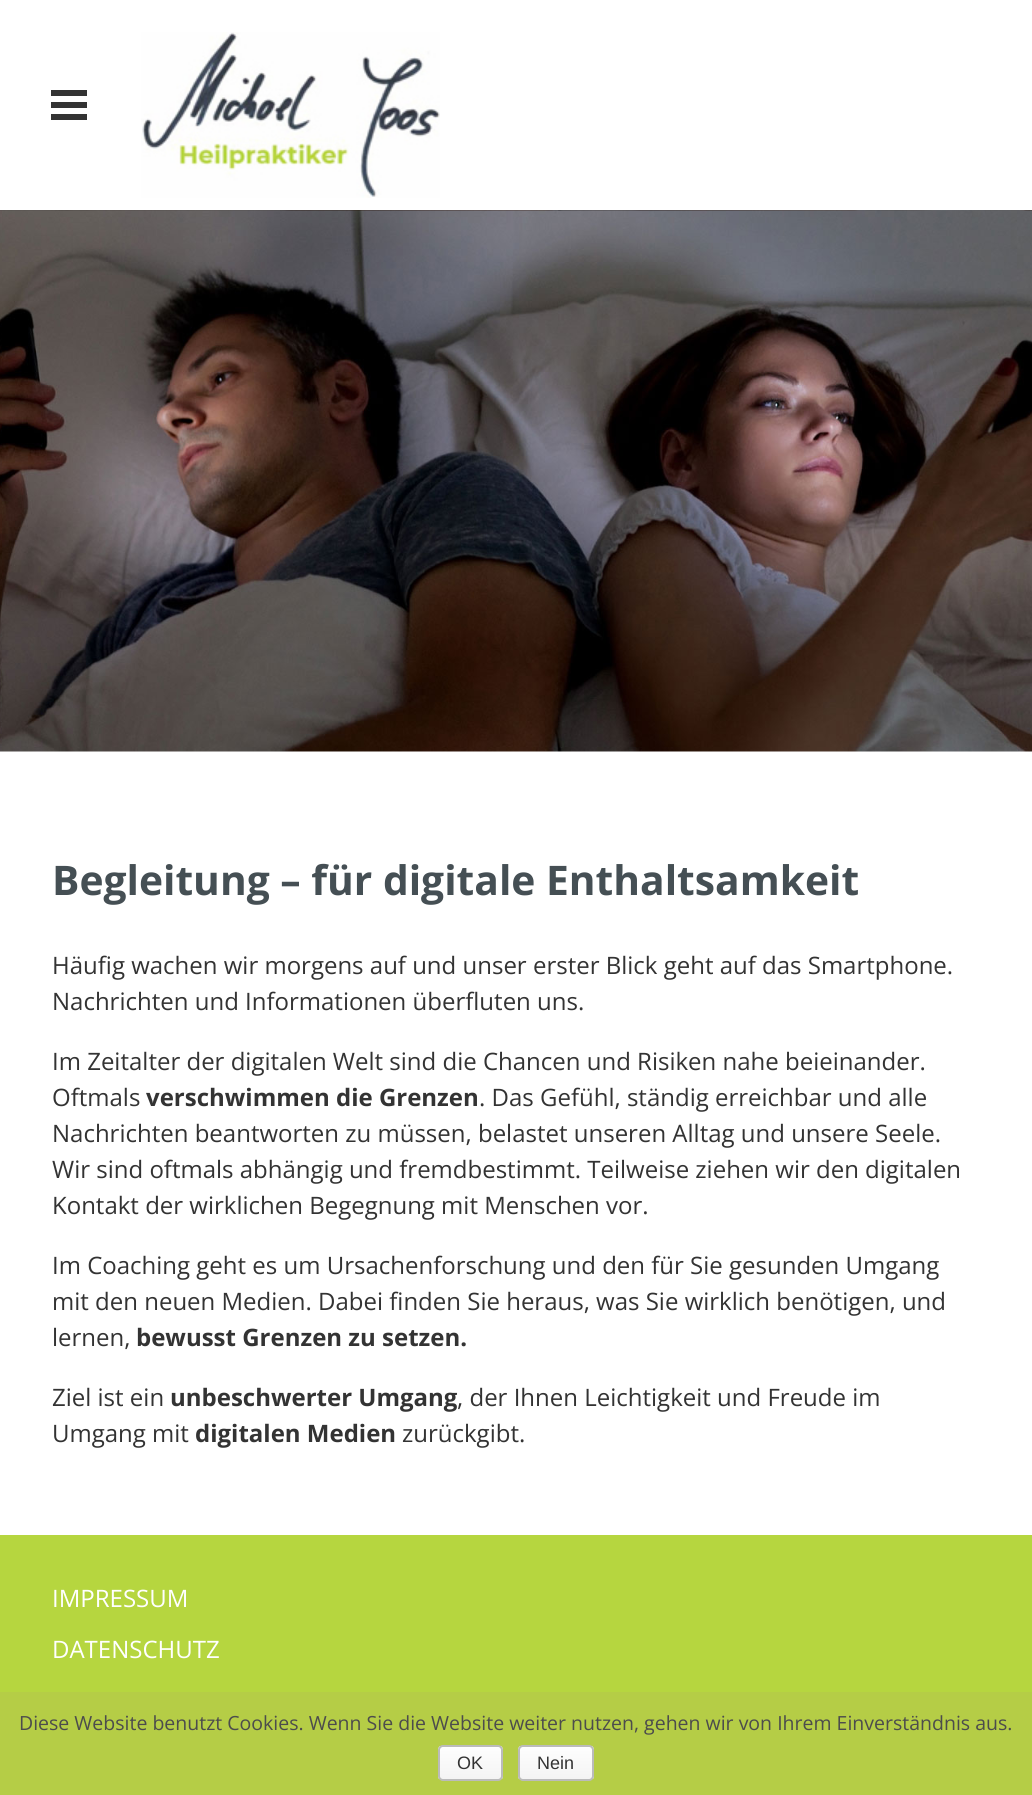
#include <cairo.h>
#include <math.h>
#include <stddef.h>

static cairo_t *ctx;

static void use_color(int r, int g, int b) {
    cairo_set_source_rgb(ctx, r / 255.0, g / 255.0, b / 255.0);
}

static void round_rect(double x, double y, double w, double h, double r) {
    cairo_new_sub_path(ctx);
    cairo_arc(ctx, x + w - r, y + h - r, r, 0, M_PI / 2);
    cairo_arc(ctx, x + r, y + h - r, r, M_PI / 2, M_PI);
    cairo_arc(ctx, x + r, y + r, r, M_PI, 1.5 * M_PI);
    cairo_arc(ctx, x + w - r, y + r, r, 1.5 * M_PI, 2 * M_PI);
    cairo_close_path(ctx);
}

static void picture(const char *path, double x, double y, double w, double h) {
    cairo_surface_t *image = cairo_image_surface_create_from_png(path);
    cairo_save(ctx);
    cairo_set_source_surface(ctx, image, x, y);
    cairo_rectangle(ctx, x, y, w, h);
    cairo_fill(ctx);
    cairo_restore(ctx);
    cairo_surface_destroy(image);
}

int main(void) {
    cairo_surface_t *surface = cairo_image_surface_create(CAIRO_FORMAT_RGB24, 1032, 1795);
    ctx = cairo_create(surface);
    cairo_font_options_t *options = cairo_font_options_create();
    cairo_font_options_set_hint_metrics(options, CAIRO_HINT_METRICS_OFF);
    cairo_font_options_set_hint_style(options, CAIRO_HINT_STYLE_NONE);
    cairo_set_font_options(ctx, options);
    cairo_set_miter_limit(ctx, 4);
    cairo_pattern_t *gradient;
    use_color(255, 255, 255);
    cairo_paint(ctx);
    use_color(51, 51, 51);
    cairo_rectangle(ctx, 51, 90, 36, 6);
    cairo_fill(ctx);
    cairo_rectangle(ctx, 51, 102, 36, 6);
    cairo_fill(ctx);
    cairo_rectangle(ctx, 51, 114, 36, 6);
    cairo_fill(ctx);
    picture("img1.png", 141, 32, 299, 166);
    picture("img2.png", 0, 210, 1032, 542);
    cairo_select_font_face(ctx, "Open Sans", CAIRO_FONT_SLANT_NORMAL, CAIRO_FONT_WEIGHT_BOLD);
    cairo_set_font_size(ctx, 40.75);
    use_color(69, 79, 84);
    cairo_move_to(ctx, 52, 895);
    cairo_show_text(ctx, "Begleitung – für digitale Enthaltsamkeit");
    cairo_select_font_face(ctx, "Open Sans", CAIRO_FONT_SLANT_NORMAL, CAIRO_FONT_WEIGHT_NORMAL);
    cairo_set_font_size(ctx, 24);
    use_color(51, 51, 51);
    cairo_move_to(ctx, 52, 974);
    cairo_show_text(ctx, "Häufig wachen wir morgens auf und unser erster Blick geht auf das Smartphone.");
    cairo_move_to(ctx, 52, 1010);
    cairo_show_text(ctx, "Nachrichten und Informationen überfluten uns.");
    cairo_move_to(ctx, 52, 1070);
    cairo_show_text(ctx, "Im Zeitalter der digitalen Welt sind die Chancen und Risiken nahe beieinander.");
    cairo_move_to(ctx, 52, 1106);
    cairo_show_text(ctx, "Oftmals");
    cairo_select_font_face(ctx, "Open Sans", CAIRO_FONT_SLANT_NORMAL, CAIRO_FONT_WEIGHT_BOLD);
    cairo_move_to(ctx, 146, 1106);
    cairo_show_text(ctx, "verschwimmen die Grenzen");
    cairo_select_font_face(ctx, "Open Sans", CAIRO_FONT_SLANT_NORMAL, CAIRO_FONT_WEIGHT_NORMAL);
    cairo_move_to(ctx, 479, 1106);
    cairo_show_text(ctx, ". Das Gefühl, ständig erreichbar und alle");
    cairo_move_to(ctx, 52, 1142);
    cairo_show_text(ctx, "Nachrichten beantworten zu müssen, belastet unseren Alltag und unsere Seele.");
    cairo_move_to(ctx, 52, 1178);
    cairo_show_text(ctx, "Wir sind oftmals abhängig und fremdbestimmt. Teilweise ziehen wir den digitalen");
    cairo_move_to(ctx, 52, 1214);
    cairo_show_text(ctx, "Kontakt der wirklichen Begegnung mit Menschen vor.");
    cairo_move_to(ctx, 52, 1274);
    cairo_show_text(ctx, "Im Coaching geht es um Ursachenforschung und den für Sie gesunden Umgang");
    cairo_move_to(ctx, 52, 1310);
    cairo_show_text(ctx, "mit den neuen Medien. Dabei finden Sie heraus, was Sie wirklich benötigen, und");
    cairo_move_to(ctx, 52, 1346);
    cairo_show_text(ctx, "lernen,");
    cairo_select_font_face(ctx, "Open Sans", CAIRO_FONT_SLANT_NORMAL, CAIRO_FONT_WEIGHT_BOLD);
    cairo_move_to(ctx, 136, 1346);
    cairo_show_text(ctx, "bewusst Grenzen zu setzen.");
    cairo_select_font_face(ctx, "Open Sans", CAIRO_FONT_SLANT_NORMAL, CAIRO_FONT_WEIGHT_NORMAL);
    cairo_move_to(ctx, 52, 1406);
    cairo_show_text(ctx, "Ziel ist ein");
    cairo_select_font_face(ctx, "Open Sans", CAIRO_FONT_SLANT_NORMAL, CAIRO_FONT_WEIGHT_BOLD);
    cairo_move_to(ctx, 170, 1406);
    cairo_show_text(ctx, "unbeschwerter Umgang");
    cairo_select_font_face(ctx, "Open Sans", CAIRO_FONT_SLANT_NORMAL, CAIRO_FONT_WEIGHT_NORMAL);
    cairo_move_to(ctx, 457, 1406);
    cairo_show_text(ctx, ", der Ihnen Leichtigkeit und Freude im");
    cairo_move_to(ctx, 52, 1442);
    cairo_show_text(ctx, "Umgang mit");
    cairo_select_font_face(ctx, "Open Sans", CAIRO_FONT_SLANT_NORMAL, CAIRO_FONT_WEIGHT_BOLD);
    cairo_move_to(ctx, 195, 1442);
    cairo_show_text(ctx, "digitalen Medien");
    cairo_select_font_face(ctx, "Open Sans", CAIRO_FONT_SLANT_NORMAL, CAIRO_FONT_WEIGHT_NORMAL);
    cairo_move_to(ctx, 402, 1442);
    cairo_show_text(ctx, "zurückgibt.");
    use_color(182, 214, 63);
    cairo_rectangle(ctx, 0, 1535, 1032, 157);
    cairo_fill(ctx);
    use_color(255, 255, 255);
    cairo_move_to(ctx, 52, 1607);
    cairo_show_text(ctx, "IMPRESSUM");
    cairo_move_to(ctx, 52, 1658);
    cairo_show_text(ctx, "DATENSCHUTZ");
    use_color(181, 205, 70);
    cairo_rectangle(ctx, 0, 1692, 1032, 103);
    cairo_fill(ctx);
    cairo_set_font_size(ctx, 19.5);
    use_color(76, 76, 76);
    cairo_move_to(ctx, 19, 1730);
    cairo_show_text(ctx, "Diese Website benutzt Cookies. Wenn Sie die Website weiter nutzen, gehen wir von Ihrem Einverständnis aus.");
    cairo_save(ctx);
    round_rect(438, 1745, 65, 36, 5);
    cairo_clip(ctx);
    gradient = cairo_pattern_create_linear(470, 1746, 470, 1779);
    cairo_pattern_add_color_stop_rgba(gradient, 0, 0.996, 0.996, 0.996, 1);
    cairo_pattern_add_color_stop_rgba(gradient, 1, 0.957, 0.957, 0.957, 1);
    cairo_set_source(ctx, gradient);
    cairo_pattern_destroy(gradient);
    cairo_rectangle(ctx, 438, 1746, 65, 33);
    cairo_fill(ctx);
    cairo_restore(ctx);
    round_rect(439, 1746, 63, 34, 4);
    use_color(187, 187, 187);
    cairo_stroke(ctx);
    cairo_select_font_face(ctx, "Liberation Sans", CAIRO_FONT_SLANT_NORMAL, CAIRO_FONT_WEIGHT_NORMAL);
    cairo_set_font_size(ctx, 18);
    use_color(51, 51, 51);
    cairo_move_to(ctx, 457, 1769);
    cairo_show_text(ctx, "OK");
    cairo_save(ctx);
    round_rect(518, 1745, 76, 36, 5);
    cairo_clip(ctx);
    gradient = cairo_pattern_create_linear(556, 1746, 556, 1779);
    cairo_pattern_add_color_stop_rgba(gradient, 0, 0.996, 0.996, 0.996, 1);
    cairo_pattern_add_color_stop_rgba(gradient, 1, 0.957, 0.957, 0.957, 1);
    cairo_set_source(ctx, gradient);
    cairo_pattern_destroy(gradient);
    cairo_rectangle(ctx, 518, 1746, 76, 33);
    cairo_fill(ctx);
    cairo_restore(ctx);
    round_rect(519, 1746, 74, 34, 4);
    use_color(187, 187, 187);
    cairo_stroke(ctx);
    use_color(51, 51, 51);
    cairo_move_to(ctx, 537, 1769);
    cairo_show_text(ctx, "Nein");
    cairo_surface_write_to_png(surface, "result.png");
    cairo_font_options_destroy(options);
    cairo_destroy(ctx);
    cairo_surface_destroy(surface);
    return 0;
}
